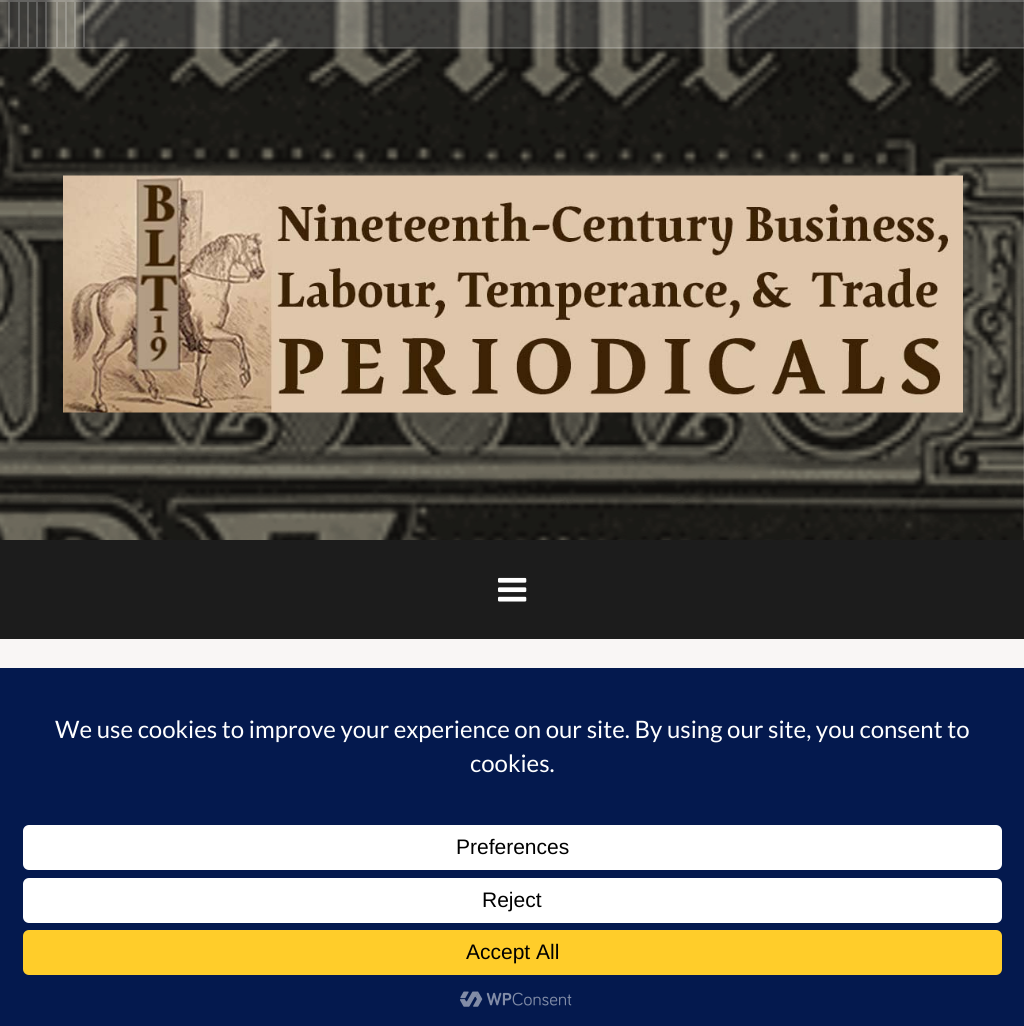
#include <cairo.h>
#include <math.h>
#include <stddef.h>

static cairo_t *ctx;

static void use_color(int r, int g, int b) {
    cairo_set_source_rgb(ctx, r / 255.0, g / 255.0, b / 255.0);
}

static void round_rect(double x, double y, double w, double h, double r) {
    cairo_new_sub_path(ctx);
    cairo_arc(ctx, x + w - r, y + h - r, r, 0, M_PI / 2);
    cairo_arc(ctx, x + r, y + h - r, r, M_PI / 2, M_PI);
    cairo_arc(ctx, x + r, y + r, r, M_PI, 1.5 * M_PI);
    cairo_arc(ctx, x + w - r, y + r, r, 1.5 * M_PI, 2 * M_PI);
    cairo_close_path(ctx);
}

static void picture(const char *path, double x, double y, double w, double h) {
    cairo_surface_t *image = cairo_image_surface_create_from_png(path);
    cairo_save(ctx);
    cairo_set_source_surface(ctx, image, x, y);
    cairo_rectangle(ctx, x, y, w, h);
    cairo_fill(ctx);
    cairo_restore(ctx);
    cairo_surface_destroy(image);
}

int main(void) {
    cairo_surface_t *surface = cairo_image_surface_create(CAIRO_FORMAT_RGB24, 1024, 1026);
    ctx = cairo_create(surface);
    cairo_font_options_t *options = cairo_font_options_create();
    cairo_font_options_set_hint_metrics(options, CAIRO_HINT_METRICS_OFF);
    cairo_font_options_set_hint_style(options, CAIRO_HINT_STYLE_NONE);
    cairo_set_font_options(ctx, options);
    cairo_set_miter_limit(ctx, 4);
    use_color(249, 246, 245);
    cairo_paint(ctx);
    picture("img1.png", 0, 0, 1024, 540);
    cairo_set_source_rgba(ctx, 1, 1, 1, 0.15);
    cairo_rectangle(ctx, 0, 0, 1024, 48);
    cairo_fill(ctx);
    cairo_set_source_rgba(ctx, 1, 1, 1, 0.2);
    cairo_rectangle(ctx, 0, 0, 1024, 2);
    cairo_fill(ctx);
    cairo_rectangle(ctx, 0, 47, 1024, 2);
    cairo_fill(ctx);
    cairo_rectangle(ctx, 8, 2, 2, 45);
    cairo_fill(ctx);
    cairo_rectangle(ctx, 18, 2, 2, 45);
    cairo_fill(ctx);
    cairo_rectangle(ctx, 27, 2, 2, 45);
    cairo_fill(ctx);
    cairo_rectangle(ctx, 36, 2, 2, 45);
    cairo_fill(ctx);
    cairo_rectangle(ctx, 45, 2, 2, 45);
    cairo_fill(ctx);
    cairo_rectangle(ctx, 56, 2, 2, 45);
    cairo_fill(ctx);
    cairo_rectangle(ctx, 65, 2, 2, 45);
    cairo_fill(ctx);
    cairo_rectangle(ctx, 74, 2, 2, 45);
    cairo_fill(ctx);
    cairo_rectangle(ctx, 83, 2, 2, 45);
    cairo_fill(ctx);
    picture("img2.png", 63, 175, 900, 238);
    use_color(28, 28, 28);
    cairo_rectangle(ctx, 0, 540, 1024, 99);
    cairo_fill(ctx);
    picture("img3.png", 498, 577, 29, 25);
    use_color(4, 25, 78);
    cairo_rectangle(ctx, 0, 668, 1024, 358);
    cairo_fill(ctx);
    cairo_select_font_face(ctx, "Lato", CAIRO_FONT_SLANT_NORMAL, CAIRO_FONT_WEIGHT_NORMAL);
    cairo_set_font_size(ctx, 24);
    use_color(255, 255, 255);
    cairo_move_to(ctx, 55, 738);
    cairo_show_text(ctx, "We use cookies to improve your experience on our site. By using our site, you consent to");
    cairo_move_to(ctx, 470, 772);
    cairo_show_text(ctx, "cookies.");
    round_rect(23, 825, 979, 45, 6);
    cairo_fill(ctx);
    cairo_select_font_face(ctx, "Liberation Sans", CAIRO_FONT_SLANT_NORMAL, CAIRO_FONT_WEIGHT_NORMAL);
    cairo_set_font_size(ctx, 21);
    use_color(0, 0, 0);
    cairo_move_to(ctx, 456, 854);
    cairo_show_text(ctx, "Preferences");
    use_color(255, 255, 255);
    round_rect(23, 878, 979, 45, 6);
    cairo_fill(ctx);
    use_color(0, 0, 0);
    cairo_move_to(ctx, 482, 907);
    cairo_show_text(ctx, "Reject");
    use_color(255, 205, 42);
    round_rect(23, 930, 979, 45, 6);
    cairo_fill(ctx);
    use_color(0, 0, 0);
    cairo_move_to(ctx, 466, 959);
    cairo_show_text(ctx, "Accept All");
    picture("img4.png", 460, 991, 112, 16);
    cairo_surface_write_to_png(surface, "result.png");
    cairo_font_options_destroy(options);
    cairo_destroy(ctx);
    cairo_surface_destroy(surface);
    return 0;
}
